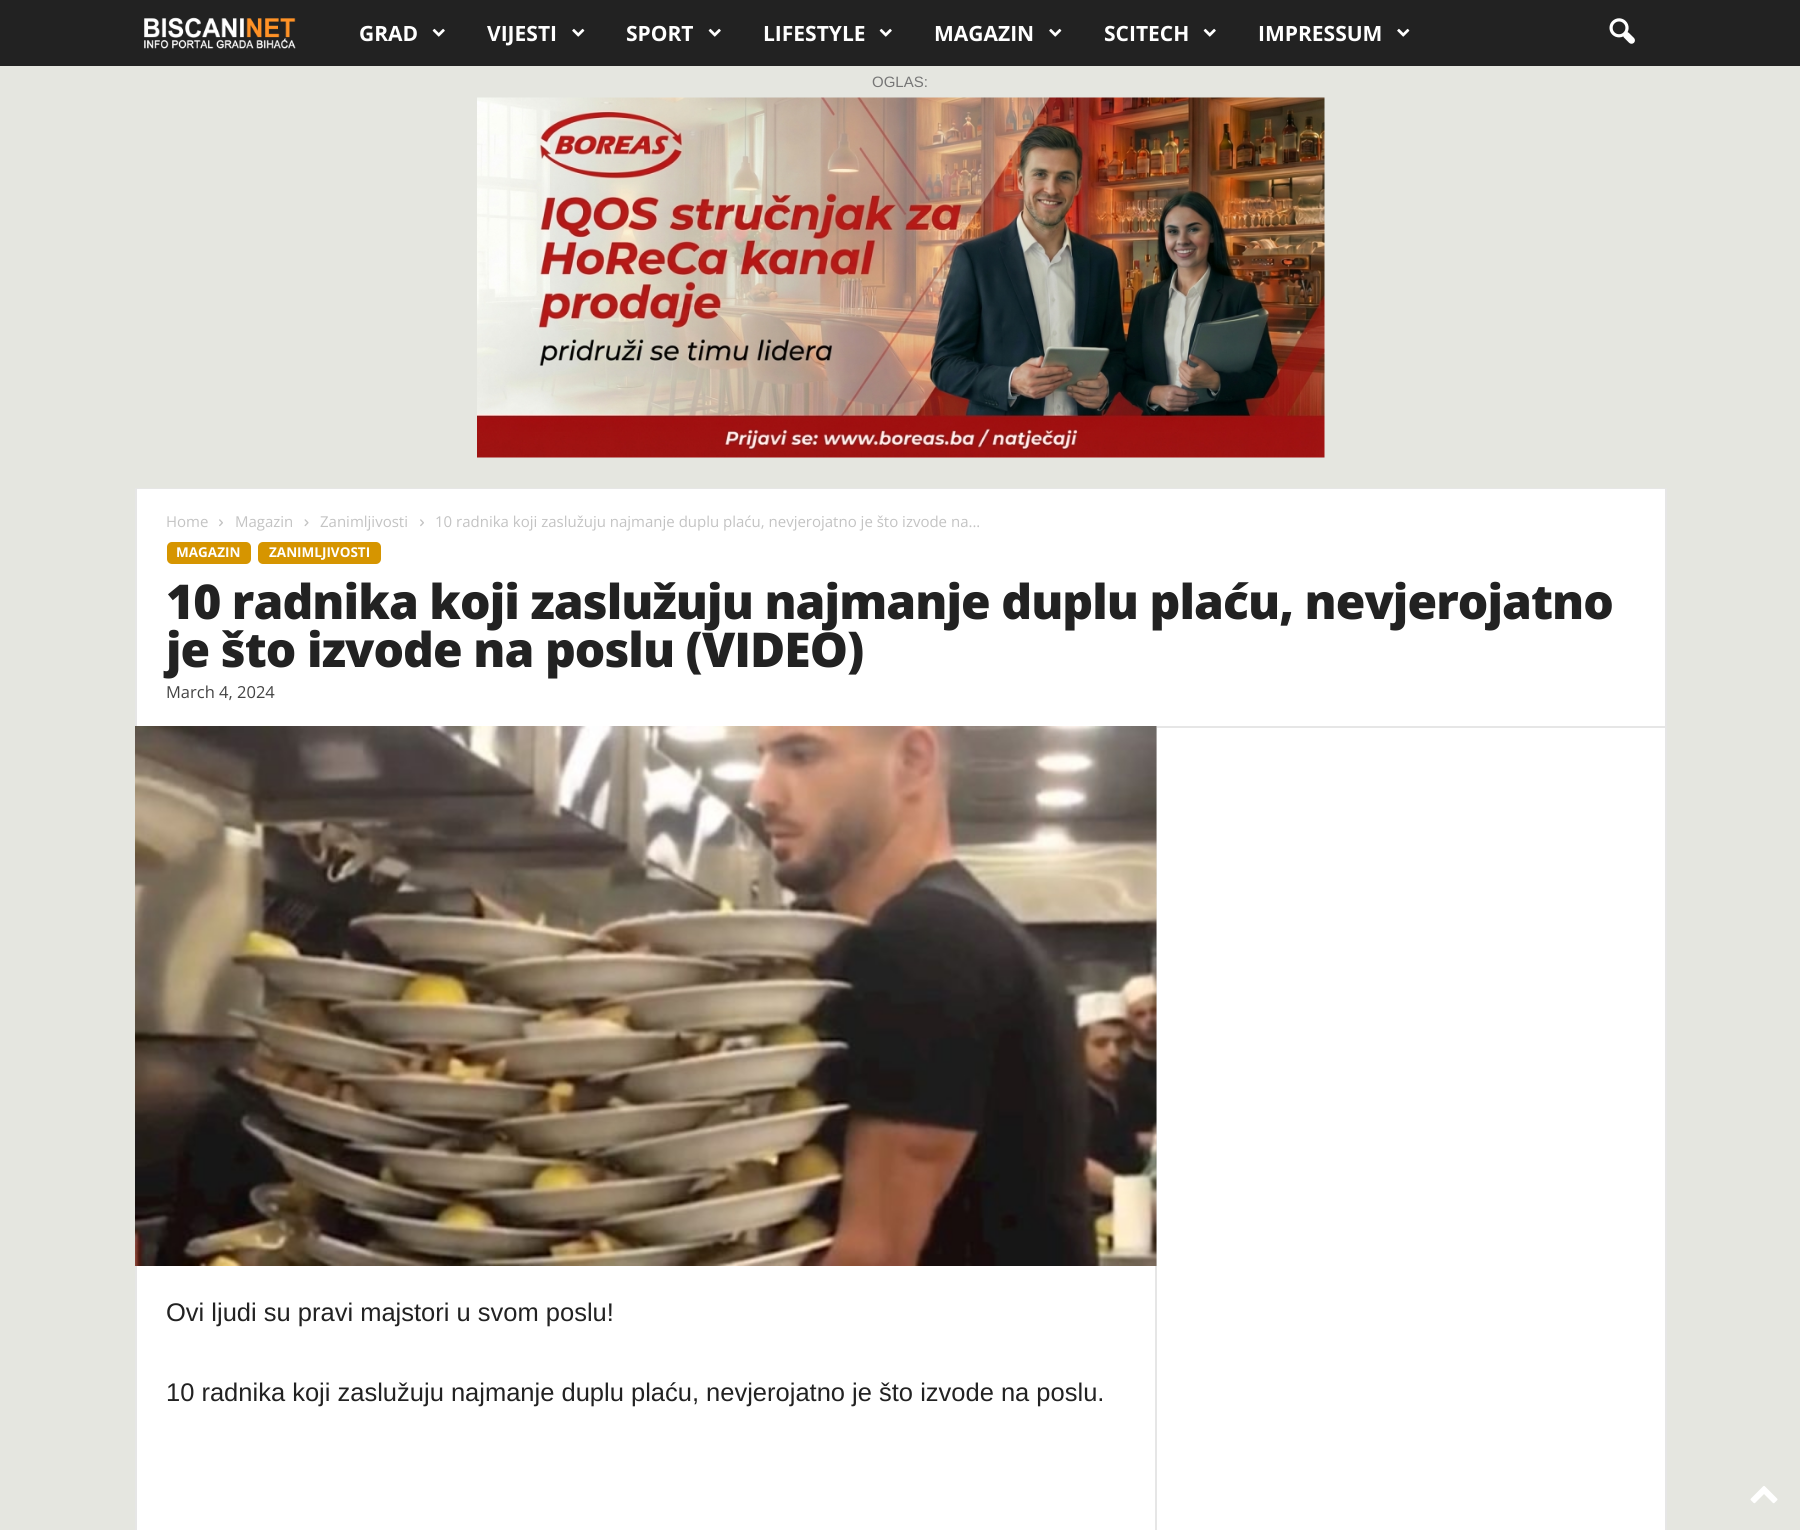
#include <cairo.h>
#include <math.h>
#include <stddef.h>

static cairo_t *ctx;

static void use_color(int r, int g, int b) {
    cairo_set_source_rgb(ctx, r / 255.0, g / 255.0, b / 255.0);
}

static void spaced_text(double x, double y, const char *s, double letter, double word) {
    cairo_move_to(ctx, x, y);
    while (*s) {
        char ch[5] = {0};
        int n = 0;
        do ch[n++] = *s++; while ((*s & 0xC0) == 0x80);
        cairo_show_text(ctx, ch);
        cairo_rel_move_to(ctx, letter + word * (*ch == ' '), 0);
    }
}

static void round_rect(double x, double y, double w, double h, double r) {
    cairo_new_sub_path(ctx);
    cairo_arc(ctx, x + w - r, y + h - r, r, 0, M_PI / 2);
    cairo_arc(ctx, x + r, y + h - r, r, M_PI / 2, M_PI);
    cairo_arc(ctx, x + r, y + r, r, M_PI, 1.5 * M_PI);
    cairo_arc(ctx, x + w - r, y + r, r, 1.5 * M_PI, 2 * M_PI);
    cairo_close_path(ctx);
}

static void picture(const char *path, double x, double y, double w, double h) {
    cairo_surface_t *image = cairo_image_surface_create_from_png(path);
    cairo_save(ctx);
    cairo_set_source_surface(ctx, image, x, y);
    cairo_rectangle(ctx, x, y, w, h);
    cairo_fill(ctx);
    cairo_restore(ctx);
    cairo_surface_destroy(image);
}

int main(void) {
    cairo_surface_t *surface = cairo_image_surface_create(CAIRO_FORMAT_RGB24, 1800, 1530);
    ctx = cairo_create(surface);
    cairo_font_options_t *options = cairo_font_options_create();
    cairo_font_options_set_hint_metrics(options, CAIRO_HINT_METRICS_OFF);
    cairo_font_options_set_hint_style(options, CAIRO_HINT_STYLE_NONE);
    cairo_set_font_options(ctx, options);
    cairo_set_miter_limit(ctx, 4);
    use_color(229, 230, 224);
    cairo_paint(ctx);
    use_color(34, 34, 34);
    cairo_rectangle(ctx, 0, 0, 1800, 66);
    cairo_fill(ctx);
    picture("img1.png", 144, 17, 152, 32);
    cairo_select_font_face(ctx, "Open Sans", CAIRO_FONT_SLANT_NORMAL, CAIRO_FONT_WEIGHT_BOLD);
    cairo_set_font_size(ctx, 21);
    use_color(255, 255, 255);
    cairo_move_to(ctx, 359, 41);
    cairo_show_text(ctx, "GRAD");
    picture("img2.png", 432, 28, 13, 9);
    cairo_move_to(ctx, 487, 41);
    cairo_show_text(ctx, "VIJESTI");
    picture("img3.png", 572, 28, 13, 9);
    cairo_move_to(ctx, 626, 41);
    cairo_show_text(ctx, "SPORT");
    picture("img2.png", 708, 28, 13, 9);
    cairo_move_to(ctx, 763, 41);
    cairo_show_text(ctx, "LIFESTYLE");
    picture("img2.png", 879, 28, 13, 9);
    cairo_move_to(ctx, 934, 41);
    cairo_show_text(ctx, "MAGAZIN");
    picture("img3.png", 1049, 28, 13, 9);
    cairo_move_to(ctx, 1104, 41);
    cairo_show_text(ctx, "SCITECH");
    picture("img2.png", 1203, 28, 13, 9);
    cairo_move_to(ctx, 1258, 41);
    cairo_show_text(ctx, "IMPRESSUM");
    picture("img3.png", 1397, 28, 13, 9);
    picture("img4.png", 1609, 18, 26, 26);
    use_color(230, 230, 230);
    cairo_rectangle(ctx, 135, 488, 1532, 1);
    cairo_fill(ctx);
    cairo_select_font_face(ctx, "Liberation Sans", CAIRO_FONT_SLANT_NORMAL, CAIRO_FONT_WEIGHT_NORMAL);
    cairo_set_font_size(ctx, 15);
    use_color(118, 118, 118);
    cairo_move_to(ctx, 872, 87);
    cairo_show_text(ctx, "OGLAS:");
    picture("img5.png", 477, 97, 848, 361);
    use_color(255, 255, 255);
    cairo_rectangle(ctx, 137, 489, 1528, 1041);
    cairo_fill(ctx);
    use_color(230, 230, 230);
    cairo_rectangle(ctx, 135, 489, 2, 1041);
    cairo_fill(ctx);
    cairo_select_font_face(ctx, "Open Sans", CAIRO_FONT_SLANT_NORMAL, CAIRO_FONT_WEIGHT_NORMAL);
    use_color(195, 195, 195);
    cairo_move_to(ctx, 166, 527);
    cairo_show_text(ctx, "Home");
    picture("img6.png", 219, 519, 4, 8);
    cairo_move_to(ctx, 235, 527);
    cairo_show_text(ctx, "Magazin");
    picture("img7.png", 304, 519, 5, 8);
    cairo_move_to(ctx, 320, 527);
    cairo_show_text(ctx, "Zanimljivosti");
    picture("img6.png", 420, 519, 4, 8);
    cairo_move_to(ctx, 435, 527);
    cairo_show_text(ctx, "10 radnika koji zaslužuju najmanje duplu plaću, nevjerojatno je što izvode na...");
    use_color(214, 149, 0);
    round_rect(167, 542, 84, 22, 5);
    cairo_fill(ctx);
    cairo_select_font_face(ctx, "Open Sans", CAIRO_FONT_SLANT_NORMAL, CAIRO_FONT_WEIGHT_BOLD);
    cairo_set_font_size(ctx, 13.5);
    use_color(255, 255, 255);
    cairo_move_to(ctx, 176, 557);
    cairo_show_text(ctx, "MAGAZIN");
    use_color(214, 149, 0);
    round_rect(258, 542, 123, 22, 5);
    cairo_fill(ctx);
    use_color(255, 255, 255);
    cairo_move_to(ctx, 269, 557);
    cairo_show_text(ctx, "ZANIMLJIVOSTI");
    cairo_select_font_face(ctx, "Open Sans ExtraBold", CAIRO_FONT_SLANT_NORMAL, CAIRO_FONT_WEIGHT_NORMAL);
    cairo_set_font_size(ctx, 48);
    use_color(34, 34, 34);
    spaced_text(166, 619, "10 radnika koji zaslužuju najmanje duplu plaću, nevjerojatno", -0.95, 0);
    spaced_text(166, 667, "je što izvode na poslu (VIDEO)", -0.95, 0);
    cairo_select_font_face(ctx, "Open Sans", CAIRO_FONT_SLANT_NORMAL, CAIRO_FONT_WEIGHT_NORMAL);
    cairo_set_font_size(ctx, 16.5);
    use_color(68, 68, 68);
    cairo_move_to(ctx, 166, 698);
    cairo_show_text(ctx, "March 4, 2024");
    use_color(230, 230, 230);
    cairo_rectangle(ctx, 1155, 726, 2, 804);
    cairo_fill(ctx);
    cairo_rectangle(ctx, 1155, 726, 510, 2);
    cairo_fill(ctx);
    picture("img8.png", 135, 726, 1022, 540);
    cairo_select_font_face(ctx, "Liberation Sans", CAIRO_FONT_SLANT_NORMAL, CAIRO_FONT_WEIGHT_NORMAL);
    cairo_set_font_size(ctx, 25.5);
    use_color(34, 34, 34);
    cairo_move_to(ctx, 166, 1321);
    cairo_show_text(ctx, "Ovi ljudi su pravi majstori u svom poslu!");
    cairo_move_to(ctx, 166, 1401);
    cairo_show_text(ctx, "10 radnika koji zaslužuju najmanje duplu plaću, nevjerojatno je što izvode na poslu.");
    use_color(230, 230, 230);
    cairo_rectangle(ctx, 1665, 489, 2, 1041);
    cairo_fill(ctx);
    picture("img9.png", 1750, 1486, 28, 18);
    cairo_surface_write_to_png(surface, "result.png");
    cairo_font_options_destroy(options);
    cairo_destroy(ctx);
    cairo_surface_destroy(surface);
    return 0;
}
